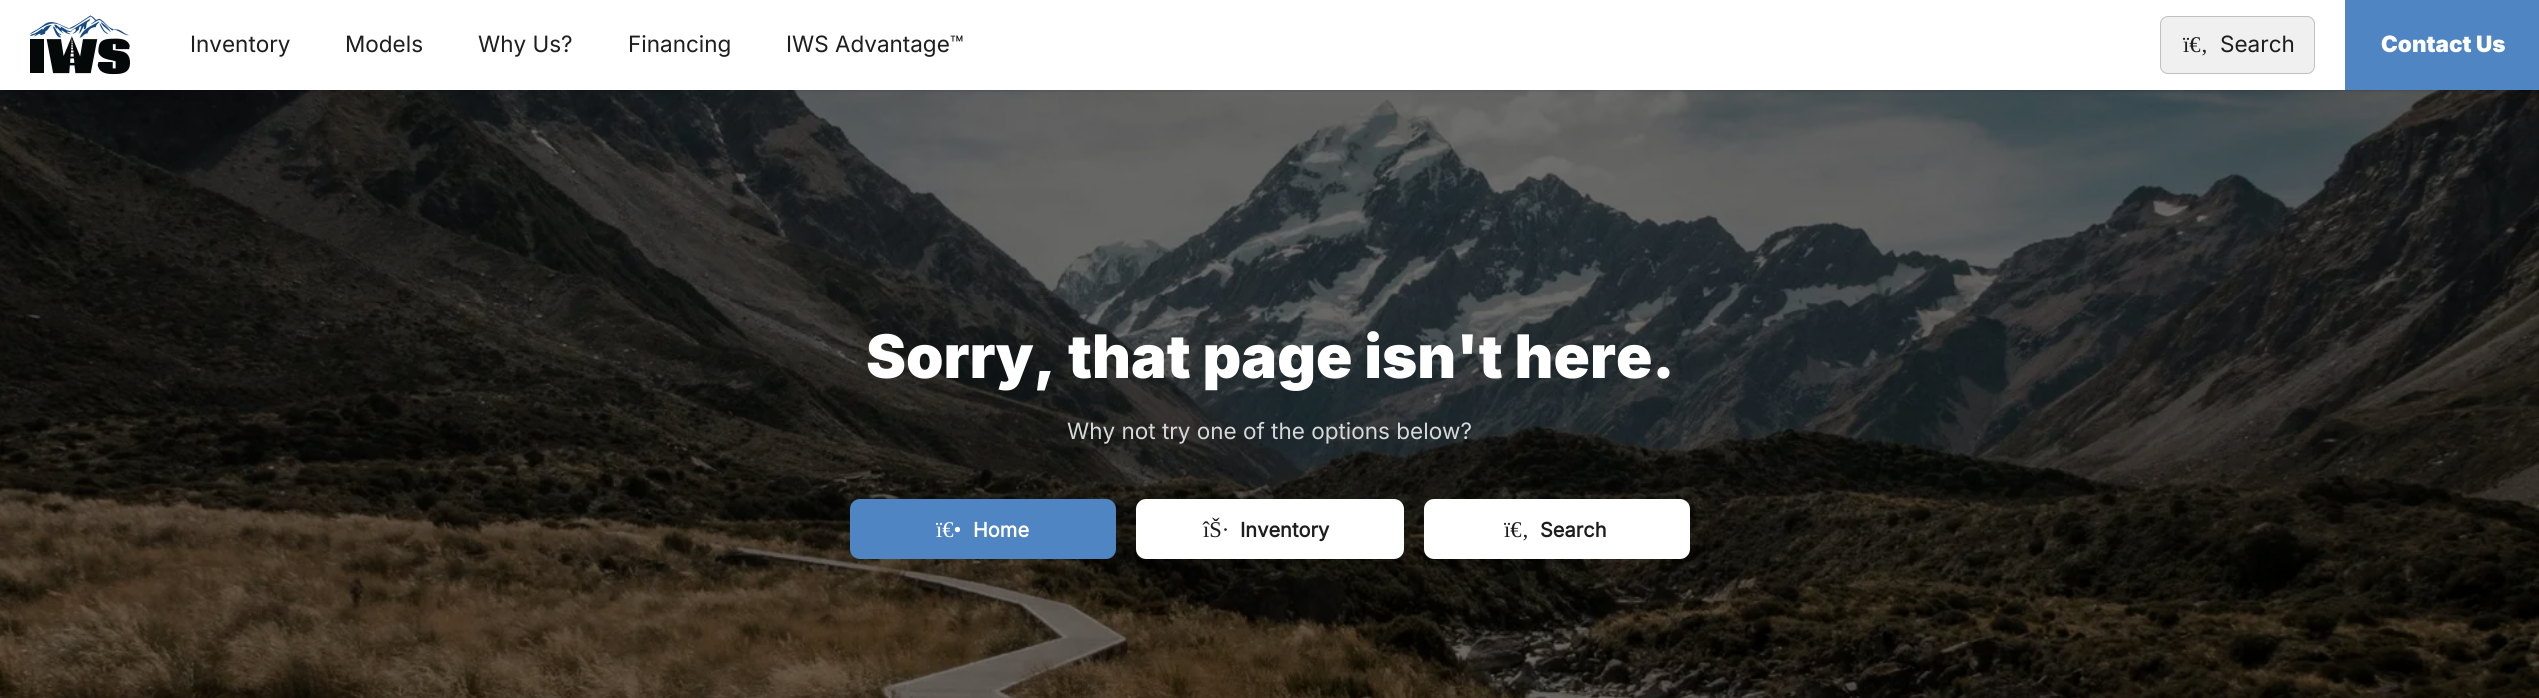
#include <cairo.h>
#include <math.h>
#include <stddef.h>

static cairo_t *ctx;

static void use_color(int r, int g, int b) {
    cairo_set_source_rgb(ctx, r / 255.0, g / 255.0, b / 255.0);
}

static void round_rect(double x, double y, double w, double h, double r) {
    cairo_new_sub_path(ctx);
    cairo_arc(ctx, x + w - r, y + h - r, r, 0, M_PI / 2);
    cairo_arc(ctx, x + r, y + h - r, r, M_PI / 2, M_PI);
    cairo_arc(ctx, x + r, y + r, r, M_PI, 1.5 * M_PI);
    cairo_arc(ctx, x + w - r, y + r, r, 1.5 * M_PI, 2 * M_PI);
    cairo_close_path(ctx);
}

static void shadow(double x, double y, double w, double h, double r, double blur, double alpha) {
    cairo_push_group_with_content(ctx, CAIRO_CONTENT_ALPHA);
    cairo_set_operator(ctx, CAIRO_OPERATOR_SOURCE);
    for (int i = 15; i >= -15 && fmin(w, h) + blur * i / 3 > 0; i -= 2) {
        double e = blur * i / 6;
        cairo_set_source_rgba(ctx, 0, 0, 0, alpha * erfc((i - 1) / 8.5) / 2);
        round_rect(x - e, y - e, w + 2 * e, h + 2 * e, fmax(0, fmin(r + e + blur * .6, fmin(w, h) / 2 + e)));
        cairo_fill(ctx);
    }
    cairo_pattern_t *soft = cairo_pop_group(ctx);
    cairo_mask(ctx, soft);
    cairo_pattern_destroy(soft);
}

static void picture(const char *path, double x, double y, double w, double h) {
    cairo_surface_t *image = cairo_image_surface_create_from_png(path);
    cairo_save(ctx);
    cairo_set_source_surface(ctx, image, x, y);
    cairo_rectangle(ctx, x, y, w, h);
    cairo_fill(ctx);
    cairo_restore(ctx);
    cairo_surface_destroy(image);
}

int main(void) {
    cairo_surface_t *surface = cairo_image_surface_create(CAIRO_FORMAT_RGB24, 2539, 698);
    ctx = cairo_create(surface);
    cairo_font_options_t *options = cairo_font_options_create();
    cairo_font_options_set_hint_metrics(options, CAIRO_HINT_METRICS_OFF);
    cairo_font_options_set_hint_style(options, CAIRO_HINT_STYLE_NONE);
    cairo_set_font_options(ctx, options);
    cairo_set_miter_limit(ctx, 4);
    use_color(255, 255, 255);
    cairo_paint(ctx);
    picture("img2.png", 0, 90, 2539, 608);
    use_color(0, 0, 0);
    shadow(1, 3, 2538, 87, 0, 1, 0.1);
    shadow(0, 1, 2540, 90, 0, 2, 0.1);
    use_color(255, 255, 255);
    cairo_rectangle(ctx, 0, 0, 2345, 90);
    cairo_fill(ctx);
    picture("img1.png", 30, 15, 100, 60);
    cairo_select_font_face(ctx, "Inter", CAIRO_FONT_SLANT_NORMAL, CAIRO_FONT_WEIGHT_NORMAL);
    cairo_set_font_size(ctx, 22.5);
    use_color(30, 30, 30);
    cairo_move_to(ctx, 190, 52);
    cairo_show_text(ctx, "Inventory");
    cairo_move_to(ctx, 345, 52);
    cairo_show_text(ctx, "Models");
    cairo_move_to(ctx, 478, 52);
    cairo_show_text(ctx, "Why Us?");
    cairo_move_to(ctx, 628, 52);
    cairo_show_text(ctx, "Financing");
    cairo_move_to(ctx, 786, 52);
    cairo_show_text(ctx, "IWS Advantage™");
    use_color(240, 240, 240);
    round_rect(2160.5, 16.5, 154, 57, 7.5);
    cairo_fill_preserve(ctx);
    use_color(192, 192, 192);
    cairo_set_line_width(ctx, 1);
    cairo_stroke(ctx);
    cairo_select_font_face(ctx, "Liberation Serif", CAIRO_FONT_SLANT_NORMAL, CAIRO_FONT_WEIGHT_NORMAL);
    use_color(30, 30, 30);
    cairo_move_to(ctx, 2183, 52);
    cairo_show_text(ctx, "ï€‚");
    cairo_select_font_face(ctx, "Inter", CAIRO_FONT_SLANT_NORMAL, CAIRO_FONT_WEIGHT_NORMAL);
    cairo_move_to(ctx, 2220, 52);
    cairo_show_text(ctx, "Search");
    use_color(79, 133, 195);
    cairo_rectangle(ctx, 2345, 0, 194, 90);
    cairo_fill(ctx);
    cairo_select_font_face(ctx, "Inter Black", CAIRO_FONT_SLANT_NORMAL, CAIRO_FONT_WEIGHT_NORMAL);
    use_color(255, 255, 255);
    cairo_move_to(ctx, 2381, 52);
    cairo_show_text(ctx, "Contact Us");
    cairo_set_font_size(ctx, 60);
    cairo_move_to(ctx, 866, 378);
    cairo_show_text(ctx, "Sorry, that page isn't here.");
    cairo_select_font_face(ctx, "Inter", CAIRO_FONT_SLANT_NORMAL, CAIRO_FONT_WEIGHT_NORMAL);
    cairo_set_font_size(ctx, 22.5);
    use_color(215, 216, 217);
    cairo_move_to(ctx, 1067, 439);
    cairo_show_text(ctx, "Why not try one of the options below?");
    use_color(79, 133, 195);
    round_rect(850, 499, 266, 60, 10);
    cairo_fill(ctx);
    cairo_select_font_face(ctx, "Liberation Serif", CAIRO_FONT_SLANT_NORMAL, CAIRO_FONT_WEIGHT_NORMAL);
    use_color(255, 255, 255);
    cairo_move_to(ctx, 936, 537);
    cairo_show_text(ctx, "ï€•");
    cairo_select_font_face(ctx, "Inter", CAIRO_FONT_SLANT_NORMAL, CAIRO_FONT_WEIGHT_BOLD);
    cairo_set_font_size(ctx, 20);
    cairo_move_to(ctx, 973, 537);
    cairo_show_text(ctx, "Home");
    round_rect(1136, 499, 268, 60, 10);
    cairo_fill(ctx);
    cairo_select_font_face(ctx, "Liberation Serif", CAIRO_FONT_SLANT_NORMAL, CAIRO_FONT_WEIGHT_NORMAL);
    cairo_set_font_size(ctx, 22.5);
    use_color(30, 30, 30);
    cairo_move_to(ctx, 1203, 537);
    cairo_show_text(ctx, "îŠ·");
    cairo_select_font_face(ctx, "Inter", CAIRO_FONT_SLANT_NORMAL, CAIRO_FONT_WEIGHT_BOLD);
    cairo_set_font_size(ctx, 20);
    cairo_move_to(ctx, 1240, 537);
    cairo_show_text(ctx, "Inventory");
    use_color(255, 255, 255);
    round_rect(1424, 499, 266, 60, 10);
    cairo_fill(ctx);
    cairo_select_font_face(ctx, "Liberation Serif", CAIRO_FONT_SLANT_NORMAL, CAIRO_FONT_WEIGHT_NORMAL);
    cairo_set_font_size(ctx, 22.5);
    use_color(30, 30, 30);
    cairo_move_to(ctx, 1504, 537);
    cairo_show_text(ctx, "ï€‚");
    cairo_select_font_face(ctx, "Inter", CAIRO_FONT_SLANT_NORMAL, CAIRO_FONT_WEIGHT_BOLD);
    cairo_set_font_size(ctx, 20);
    cairo_move_to(ctx, 1540, 537);
    cairo_show_text(ctx, "Search");
    cairo_surface_write_to_png(surface, "result.png");
    cairo_font_options_destroy(options);
    cairo_destroy(ctx);
    cairo_surface_destroy(surface);
    return 0;
}
